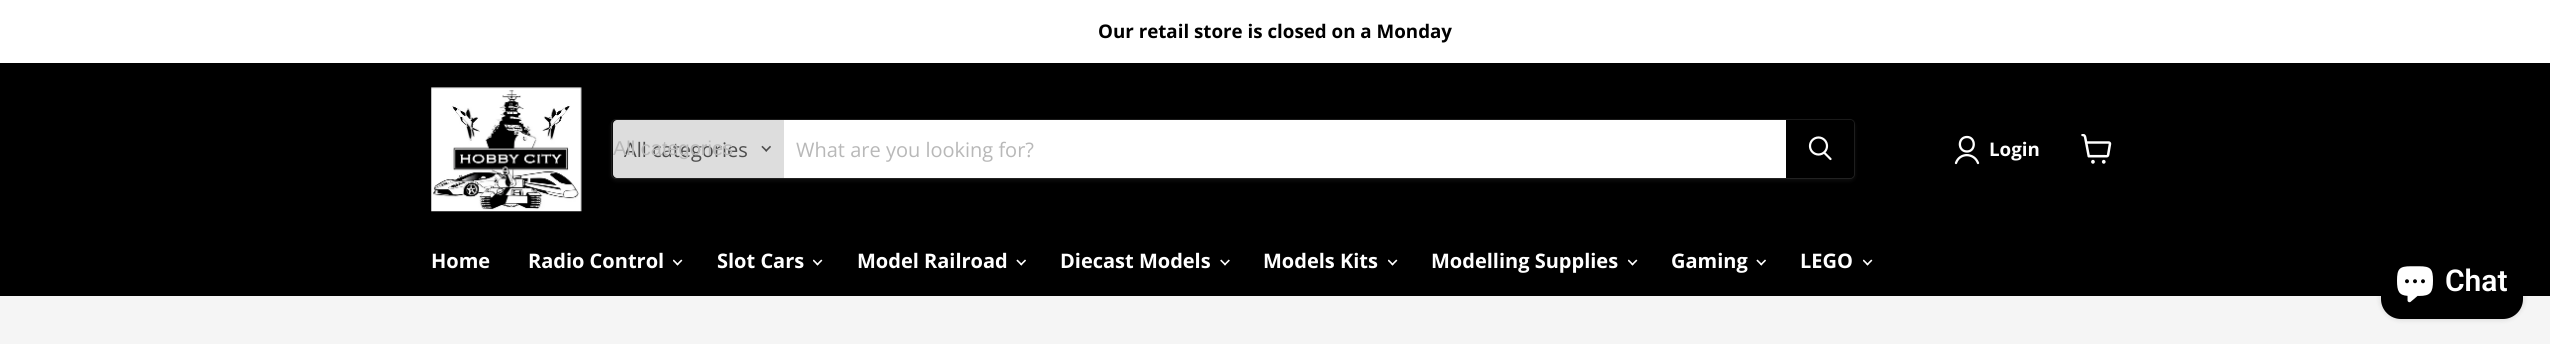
#include <cairo.h>
#include <math.h>
#include <stddef.h>

static cairo_t *ctx;

static void use_color(int r, int g, int b) {
    cairo_set_source_rgb(ctx, r / 255.0, g / 255.0, b / 255.0);
}

static void round_rect(double x, double y, double w, double h, double r) {
    cairo_new_sub_path(ctx);
    cairo_arc(ctx, x + w - r, y + h - r, r, 0, M_PI / 2);
    cairo_arc(ctx, x + r, y + h - r, r, M_PI / 2, M_PI);
    cairo_arc(ctx, x + r, y + r, r, M_PI, 1.5 * M_PI);
    cairo_arc(ctx, x + w - r, y + r, r, 1.5 * M_PI, 2 * M_PI);
    cairo_close_path(ctx);
}

static void shadow(double x, double y, double w, double h, double r, double blur, double alpha) {
    cairo_push_group_with_content(ctx, CAIRO_CONTENT_ALPHA);
    cairo_set_operator(ctx, CAIRO_OPERATOR_SOURCE);
    for (int i = 15; i >= -15 && fmin(w, h) + blur * i / 3 > 0; i -= 2) {
        double e = blur * i / 6;
        cairo_set_source_rgba(ctx, 0, 0, 0, alpha * erfc((i - 1) / 8.5) / 2);
        round_rect(x - e, y - e, w + 2 * e, h + 2 * e, fmax(0, fmin(r + e + blur * .6, fmin(w, h) / 2 + e)));
        cairo_fill(ctx);
    }
    cairo_pattern_t *soft = cairo_pop_group(ctx);
    cairo_mask(ctx, soft);
    cairo_pattern_destroy(soft);
}

static void picture(const char *path, double x, double y, double w, double h) {
    cairo_surface_t *image = cairo_image_surface_create_from_png(path);
    cairo_save(ctx);
    cairo_set_source_surface(ctx, image, x, y);
    cairo_rectangle(ctx, x, y, w, h);
    cairo_fill(ctx);
    cairo_restore(ctx);
    cairo_surface_destroy(image);
}

int main(void) {
    cairo_surface_t *surface = cairo_image_surface_create(CAIRO_FORMAT_RGB24, 2550, 344);
    ctx = cairo_create(surface);
    cairo_font_options_t *options = cairo_font_options_create();
    cairo_font_options_set_hint_metrics(options, CAIRO_HINT_METRICS_OFF);
    cairo_font_options_set_hint_style(options, CAIRO_HINT_STYLE_NONE);
    cairo_set_font_options(ctx, options);
    cairo_set_miter_limit(ctx, 4);
    use_color(245, 245, 245);
    cairo_paint(ctx);
    use_color(255, 255, 255);
    cairo_rectangle(ctx, 0, 0, 2550, 63);
    cairo_fill(ctx);
    cairo_select_font_face(ctx, "Open Sans", CAIRO_FONT_SLANT_NORMAL, CAIRO_FONT_WEIGHT_BOLD);
    cairo_set_font_size(ctx, 18.75);
    use_color(0, 0, 0);
    cairo_move_to(ctx, 1098, 38);
    cairo_show_text(ctx, "Our retail store is closed on a Monday");
    cairo_rectangle(ctx, 0, 63, 2550, 233);
    cairo_fill(ctx);
    picture("img1.png", 431, 87, 151, 125);
    use_color(123, 123, 123);
    shadow(611, 121, 1244, 60, 5, 2, 0.11);
    round_rect(611.5, 119.5, 1243, 59, 4.5);
    cairo_set_source_rgba(ctx, 0.482, 0.482, 0.482, 0.2);
    cairo_set_line_width(ctx, 1);
    cairo_stroke(ctx);
    use_color(221, 221, 221);
    cairo_new_path(ctx);
    cairo_move_to(ctx, 617, 120);
    cairo_line_to(ctx, 784, 120);
    cairo_line_to(ctx, 784, 178);
    cairo_line_to(ctx, 617, 178);
    cairo_curve_to(ctx, 615, 178, 613, 176, 613, 174);
    cairo_line_to(ctx, 613, 124);
    cairo_curve_to(ctx, 613, 122, 615, 120, 617, 120);
    cairo_close_path(ctx);
    cairo_fill(ctx);
    cairo_select_font_face(ctx, "Open Sans", CAIRO_FONT_SLANT_NORMAL, CAIRO_FONT_WEIGHT_NORMAL);
    cairo_set_font_size(ctx, 20);
    use_color(77, 77, 77);
    cairo_move_to(ctx, 624, 157);
    cairo_show_text(ctx, "All categories");
    cairo_select_font_face(ctx, "Liberation Sans", CAIRO_FONT_SLANT_NORMAL, CAIRO_FONT_WEIGHT_NORMAL);
    use_color(184, 184, 184);
    cairo_move_to(ctx, 613, 155);
    cairo_show_text(ctx, "All categories");
    picture("img2.png", 761, 145, 10, 7);
    use_color(255, 255, 255);
    cairo_rectangle(ctx, 784, 120, 1002, 58);
    cairo_fill(ctx);
    cairo_select_font_face(ctx, "Open Sans", CAIRO_FONT_SLANT_NORMAL, CAIRO_FONT_WEIGHT_NORMAL);
    use_color(184, 184, 184);
    cairo_move_to(ctx, 796, 157);
    cairo_show_text(ctx, "What are you looking for?");
    use_color(0, 0, 0);
    cairo_new_path(ctx);
    cairo_move_to(ctx, 1786.5, 120.5);
    cairo_line_to(ctx, 1850, 120.5);
    cairo_curve_to(ctx, 1852, 120.5, 1853.5, 122, 1853.5, 124);
    cairo_line_to(ctx, 1853.5, 174);
    cairo_curve_to(ctx, 1853.5, 176, 1852, 177.5, 1850, 177.5);
    cairo_line_to(ctx, 1786.5, 177.5);
    cairo_close_path(ctx);
    cairo_fill_preserve(ctx);
    cairo_stroke(ctx);
    cairo_new_path(ctx);
    cairo_move_to(ctx, 1830.5, 159);
    cairo_line_to(ctx, 1824.5, 153);
    use_color(255, 255, 255);
    cairo_set_line_width(ctx, 2.2);
    cairo_set_line_cap(ctx, CAIRO_LINE_CAP_ROUND);
    cairo_stroke(ctx);
    cairo_arc(ctx, 1818.5, 146, 8.5, 0, 2 * M_PI);
    cairo_set_line_cap(ctx, CAIRO_LINE_CAP_BUTT);
    cairo_stroke(ctx);
    cairo_new_path(ctx);
    cairo_move_to(ctx, 1967, 151.5);
    cairo_curve_to(ctx, 1976, 151.5, 1976, 137, 1967, 137);
    cairo_curve_to(ctx, 1957.5, 137, 1957.5, 151.5, 1967, 151.5);
    cairo_close_path(ctx);
    cairo_move_to(ctx, 1978, 163);
    cairo_curve_to(ctx, 1974, 152.5, 1959.5, 152.5, 1956, 163);
    cairo_set_line_width(ctx, 2.3);
    cairo_set_line_cap(ctx, CAIRO_LINE_CAP_ROUND);
    cairo_set_line_join(ctx, CAIRO_LINE_JOIN_ROUND);
    cairo_stroke(ctx);
    cairo_select_font_face(ctx, "Open Sans", CAIRO_FONT_SLANT_NORMAL, CAIRO_FONT_WEIGHT_BOLD);
    cairo_set_font_size(ctx, 18.75);
    cairo_move_to(ctx, 1989, 156);
    cairo_show_text(ctx, "Login");
    picture("img3.png", 2081, 134, 31, 30);
    cairo_set_font_size(ctx, 20);
    cairo_move_to(ctx, 431, 268);
    cairo_show_text(ctx, "Home");
    cairo_move_to(ctx, 528, 268);
    cairo_show_text(ctx, "Radio Control");
    picture("img4.png", 673, 259, 10, 7);
    cairo_move_to(ctx, 717, 268);
    cairo_show_text(ctx, "Slot Cars");
    picture("img4.png", 813, 259, 10, 7);
    cairo_move_to(ctx, 857, 268);
    cairo_show_text(ctx, "Model Railroad");
    picture("img5.png", 1016, 259, 10, 7);
    cairo_move_to(ctx, 1060, 268);
    cairo_show_text(ctx, "Diecast Models");
    picture("img6.png", 1220, 259, 10, 7);
    cairo_move_to(ctx, 1263, 268);
    cairo_show_text(ctx, "Models Kits");
    picture("img4.png", 1388, 259, 10, 7);
    cairo_move_to(ctx, 1431, 268);
    cairo_show_text(ctx, "Modelling Supplies");
    picture("img4.png", 1628, 259, 10, 7);
    cairo_move_to(ctx, 1671, 268);
    cairo_show_text(ctx, "Gaming");
    picture("img5.png", 1756, 259, 10, 7);
    cairo_move_to(ctx, 1800, 268);
    cairo_show_text(ctx, "LEGO");
    picture("img4.png", 1863, 259, 10, 7);
    use_color(0, 0, 0);
    shadow(2381, 244, 142, 75, 20, 3, 0.15);
    use_color(0, 0, 0);
    round_rect(2381, 244, 142, 75, 20);
    cairo_fill(ctx);
    picture("img7.png", 2397, 266, 36, 37);
    cairo_select_font_face(ctx, "Roboto SemiBold", CAIRO_FONT_SLANT_NORMAL, CAIRO_FONT_WEIGHT_NORMAL);
    cairo_set_font_size(ctx, 30);
    use_color(255, 255, 255);
    cairo_move_to(ctx, 2445, 291);
    cairo_show_text(ctx, "Chat");
    cairo_surface_write_to_png(surface, "result.png");
    cairo_font_options_destroy(options);
    cairo_destroy(ctx);
    cairo_surface_destroy(surface);
    return 0;
}
